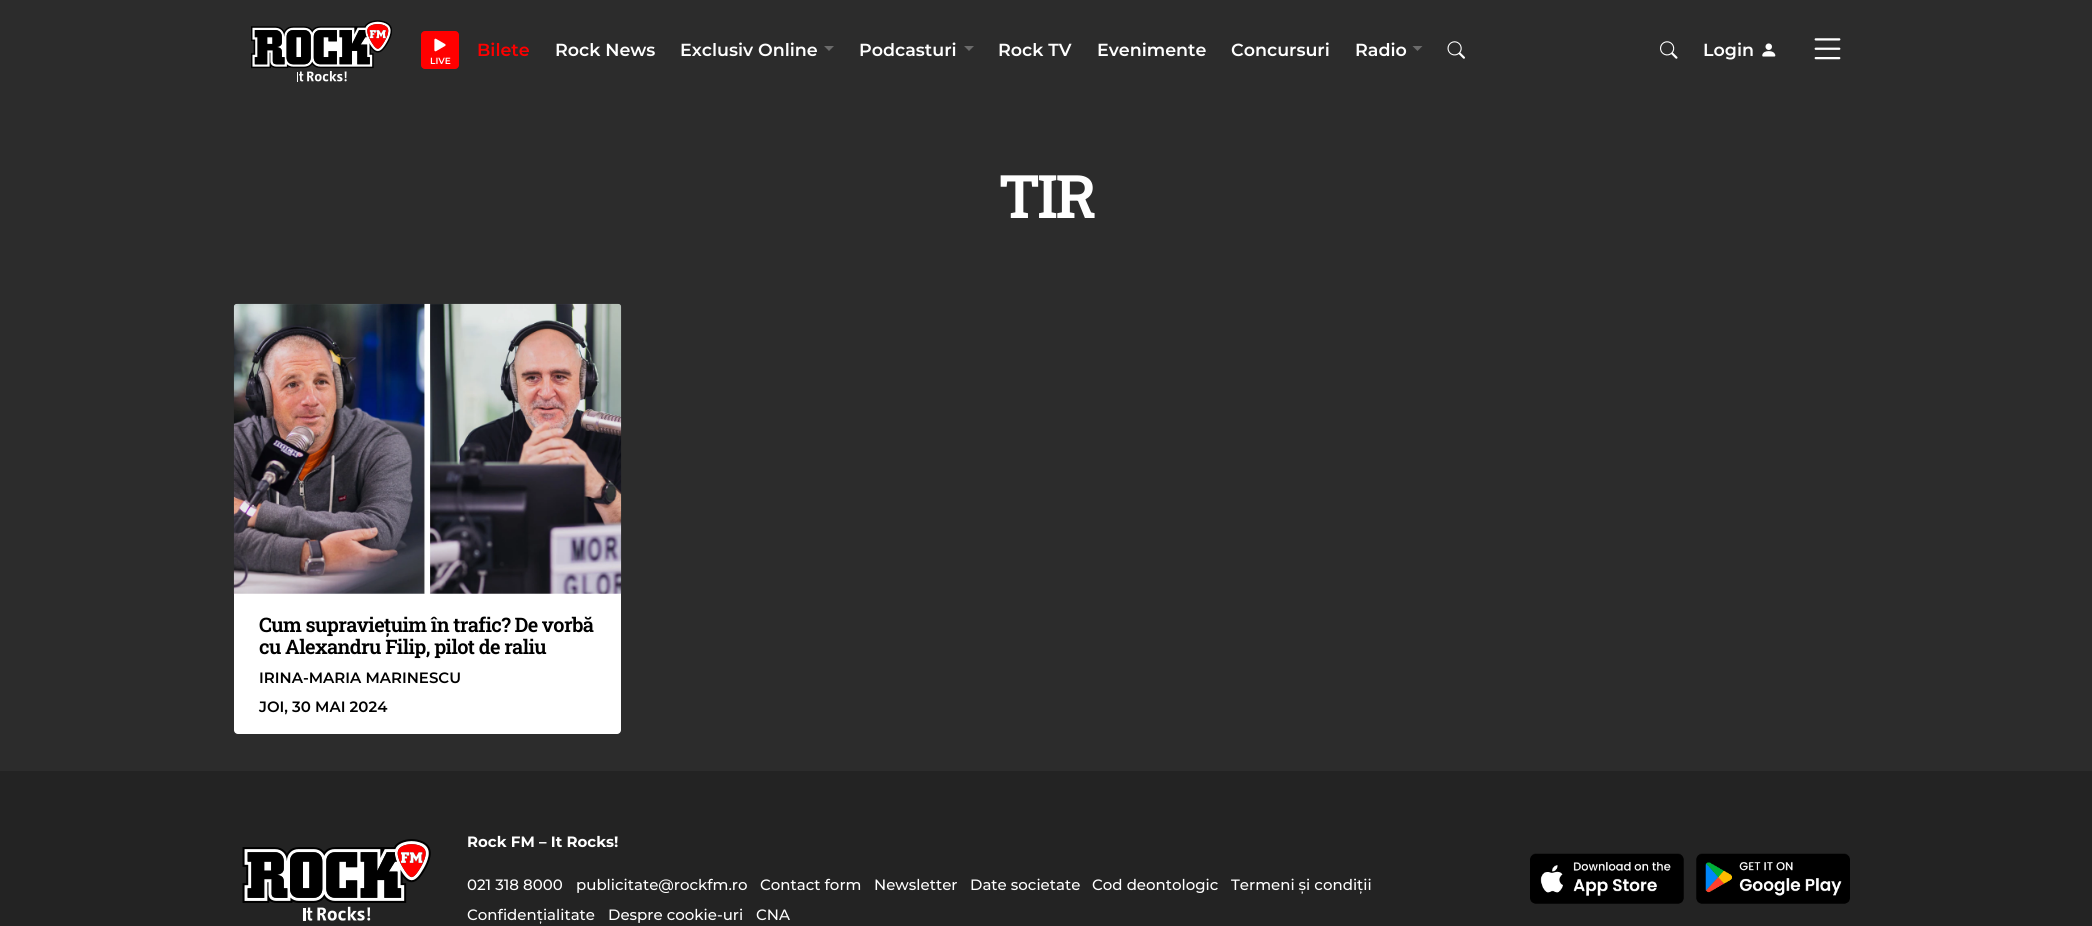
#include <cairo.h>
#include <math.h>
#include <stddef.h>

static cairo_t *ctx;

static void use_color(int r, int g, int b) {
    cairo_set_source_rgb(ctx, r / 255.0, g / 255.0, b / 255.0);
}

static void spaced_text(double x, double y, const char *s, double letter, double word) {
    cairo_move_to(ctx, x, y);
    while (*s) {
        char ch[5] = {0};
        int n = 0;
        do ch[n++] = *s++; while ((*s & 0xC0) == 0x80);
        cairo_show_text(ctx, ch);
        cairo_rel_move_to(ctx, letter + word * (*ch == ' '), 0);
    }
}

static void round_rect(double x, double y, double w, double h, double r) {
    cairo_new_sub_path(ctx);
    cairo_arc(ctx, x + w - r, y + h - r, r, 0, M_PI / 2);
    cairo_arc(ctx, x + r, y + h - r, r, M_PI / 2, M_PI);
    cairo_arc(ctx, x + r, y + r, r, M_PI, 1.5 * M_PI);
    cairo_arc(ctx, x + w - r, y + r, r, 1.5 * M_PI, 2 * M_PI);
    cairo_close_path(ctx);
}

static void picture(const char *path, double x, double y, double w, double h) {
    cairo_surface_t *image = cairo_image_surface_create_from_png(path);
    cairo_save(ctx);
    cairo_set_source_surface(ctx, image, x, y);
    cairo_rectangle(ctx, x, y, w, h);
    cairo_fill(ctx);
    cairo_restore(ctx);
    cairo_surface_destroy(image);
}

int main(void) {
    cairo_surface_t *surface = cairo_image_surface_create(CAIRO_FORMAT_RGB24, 2092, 926);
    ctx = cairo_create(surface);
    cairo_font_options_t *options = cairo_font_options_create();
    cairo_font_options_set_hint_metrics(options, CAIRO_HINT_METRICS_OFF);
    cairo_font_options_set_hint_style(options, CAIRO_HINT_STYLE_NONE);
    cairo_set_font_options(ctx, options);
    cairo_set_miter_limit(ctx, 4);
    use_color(44, 44, 44);
    cairo_paint(ctx);
    picture("img1.png", 251, 20, 141, 62);
    use_color(255, 0, 0);
    round_rect(421, 31, 38, 38, 4);
    cairo_fill(ctx);
    picture("img2.png", 434, 38, 12, 14);
    cairo_select_font_face(ctx, "Montserrat SemiBold", CAIRO_FONT_SLANT_NORMAL, CAIRO_FONT_WEIGHT_NORMAL);
    cairo_set_font_size(ctx, 9);
    use_color(255, 255, 255);
    cairo_move_to(ctx, 430, 64);
    cairo_show_text(ctx, "LIVE");
    cairo_set_font_size(ctx, 17.5);
    use_color(255, 0, 0);
    cairo_move_to(ctx, 477, 56);
    cairo_show_text(ctx, "Bilete");
    use_color(255, 255, 255);
    cairo_move_to(ctx, 555, 56);
    cairo_show_text(ctx, "Rock News");
    cairo_move_to(ctx, 680, 56);
    cairo_show_text(ctx, "Exclusiv Online");
    use_color(107, 107, 107);
    cairo_new_path(ctx);
    cairo_move_to(ctx, 824, 46);
    cairo_line_to(ctx, 834, 46);
    cairo_line_to(ctx, 829, 51);
    cairo_close_path(ctx);
    cairo_fill(ctx);
    use_color(255, 255, 255);
    cairo_move_to(ctx, 859, 56);
    cairo_show_text(ctx, "Podcasturi");
    use_color(107, 107, 107);
    cairo_new_path(ctx);
    cairo_move_to(ctx, 964, 46);
    cairo_line_to(ctx, 974, 46);
    cairo_line_to(ctx, 969, 51);
    cairo_close_path(ctx);
    cairo_fill(ctx);
    use_color(255, 255, 255);
    cairo_move_to(ctx, 998, 56);
    cairo_show_text(ctx, "Rock TV");
    cairo_move_to(ctx, 1097, 56);
    cairo_show_text(ctx, "Evenimente");
    cairo_move_to(ctx, 1231, 56);
    cairo_show_text(ctx, "Concursuri");
    cairo_move_to(ctx, 1355, 56);
    cairo_show_text(ctx, "Radio");
    use_color(107, 107, 107);
    cairo_new_path(ctx);
    cairo_move_to(ctx, 1412.5, 46);
    cairo_line_to(ctx, 1422.5, 46);
    cairo_line_to(ctx, 1417.5, 51);
    cairo_close_path(ctx);
    cairo_fill(ctx);
    picture("img3.png", 1447, 41, 18, 18);
    picture("img4.png", 1660, 41, 18, 18);
    use_color(255, 255, 255);
    cairo_move_to(ctx, 1703, 56);
    cairo_show_text(ctx, "Login");
    picture("img5.png", 1762, 43, 14, 14);
    picture("img6.png", 1814, 38, 27, 22);
    cairo_select_font_face(ctx, "Roboto Slab SemiBold", CAIRO_FONT_SLANT_NORMAL, CAIRO_FONT_WEIGHT_NORMAL);
    cairo_set_font_size(ctx, 60);
    spaced_text(999, 218, "TIR", -2.5, 0);
    round_rect(234, 304, 387, 430, 4);
    cairo_fill(ctx);
    picture("img7.png", 233, 303, 389, 291);
    cairo_set_font_size(ctx, 20);
    use_color(0, 0, 0);
    spaced_text(259, 632, "Cum supraviețuim în trafic? De vorbă", -0.6, 0);
    spaced_text(259, 654, "cu Alexandru Filip, pilot de raliu", -0.6, 0);
    cairo_select_font_face(ctx, "Montserrat SemiBold", CAIRO_FONT_SLANT_NORMAL, CAIRO_FONT_WEIGHT_NORMAL);
    cairo_set_font_size(ctx, 15);
    cairo_move_to(ctx, 259, 683);
    cairo_show_text(ctx, "IRINA-MARIA MARINESCU");
    cairo_move_to(ctx, 259, 712);
    cairo_show_text(ctx, "JOI, 30 MAI 2024");
    use_color(35, 35, 35);
    cairo_rectangle(ctx, 0, 771, 2092, 155);
    cairo_fill(ctx);
    picture("img8.png", 242, 839, 189, 82);
    cairo_select_font_face(ctx, "Montserrat", CAIRO_FONT_SLANT_NORMAL, CAIRO_FONT_WEIGHT_BOLD);
    use_color(255, 255, 255);
    cairo_move_to(ctx, 467, 847);
    cairo_show_text(ctx, "Rock FM – It Rocks!");
    cairo_select_font_face(ctx, "Montserrat Medium", CAIRO_FONT_SLANT_NORMAL, CAIRO_FONT_WEIGHT_NORMAL);
    cairo_move_to(ctx, 467, 890);
    cairo_show_text(ctx, "021 318 8000");
    cairo_move_to(ctx, 576, 890);
    cairo_show_text(ctx, "publicitate@rockfm.ro");
    cairo_move_to(ctx, 760, 890);
    cairo_show_text(ctx, "Contact form");
    cairo_move_to(ctx, 874, 890);
    cairo_show_text(ctx, "Newsletter");
    cairo_move_to(ctx, 970, 890);
    cairo_show_text(ctx, "Date societate");
    cairo_move_to(ctx, 1092, 890);
    cairo_show_text(ctx, "Cod deontologic");
    cairo_move_to(ctx, 1231, 890);
    cairo_show_text(ctx, "Termeni și condiții");
    cairo_move_to(ctx, 467, 920);
    cairo_show_text(ctx, "Confidențialitate");
    cairo_move_to(ctx, 608, 920);
    cairo_show_text(ctx, "Despre cookie-uri");
    cairo_move_to(ctx, 756, 920);
    cairo_show_text(ctx, "CNA");
    picture("img9.png", 1530, 853, 154, 51);
    picture("img10.png", 1696, 853, 154, 51);
    cairo_surface_write_to_png(surface, "result.png");
    cairo_font_options_destroy(options);
    cairo_destroy(ctx);
    cairo_surface_destroy(surface);
    return 0;
}
